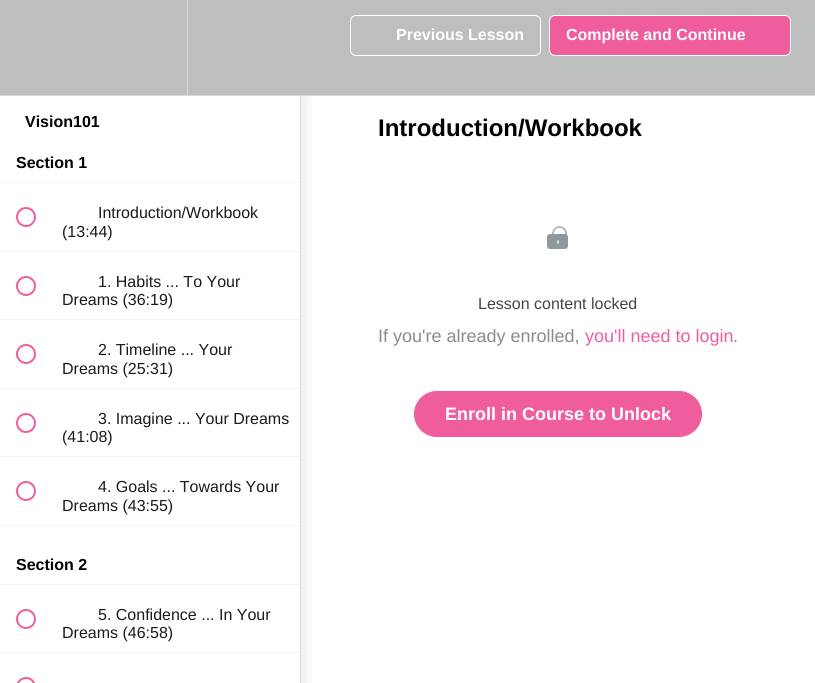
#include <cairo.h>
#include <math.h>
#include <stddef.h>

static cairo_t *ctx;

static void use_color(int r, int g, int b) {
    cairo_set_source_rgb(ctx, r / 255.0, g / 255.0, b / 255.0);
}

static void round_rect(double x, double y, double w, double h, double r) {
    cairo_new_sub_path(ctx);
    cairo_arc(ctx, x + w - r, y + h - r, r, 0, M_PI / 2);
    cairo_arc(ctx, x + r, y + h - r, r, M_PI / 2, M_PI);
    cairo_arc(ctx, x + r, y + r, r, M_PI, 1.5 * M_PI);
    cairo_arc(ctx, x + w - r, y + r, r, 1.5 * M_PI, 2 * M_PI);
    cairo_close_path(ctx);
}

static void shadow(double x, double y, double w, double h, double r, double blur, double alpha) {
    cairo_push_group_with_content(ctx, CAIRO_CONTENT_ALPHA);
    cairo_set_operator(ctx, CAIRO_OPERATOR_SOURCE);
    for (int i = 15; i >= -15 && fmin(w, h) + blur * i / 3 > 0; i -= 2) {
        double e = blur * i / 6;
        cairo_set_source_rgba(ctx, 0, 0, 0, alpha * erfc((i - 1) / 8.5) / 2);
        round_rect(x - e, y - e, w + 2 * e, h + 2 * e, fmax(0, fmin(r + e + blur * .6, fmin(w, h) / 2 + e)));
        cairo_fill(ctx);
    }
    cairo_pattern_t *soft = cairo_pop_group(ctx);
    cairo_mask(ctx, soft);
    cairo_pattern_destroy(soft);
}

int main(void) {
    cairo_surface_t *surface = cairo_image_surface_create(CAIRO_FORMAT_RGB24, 815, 683);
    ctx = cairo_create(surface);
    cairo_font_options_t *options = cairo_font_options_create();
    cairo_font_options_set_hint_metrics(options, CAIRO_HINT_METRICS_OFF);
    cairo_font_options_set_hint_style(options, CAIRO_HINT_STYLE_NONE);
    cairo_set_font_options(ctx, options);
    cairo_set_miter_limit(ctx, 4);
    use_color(255, 255, 255);
    cairo_paint(ctx);
    cairo_save(ctx);
    cairo_rectangle(ctx, 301, 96, 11, 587);
    cairo_clip(ctx);
    use_color(32, 39, 45);
    shadow(0, 94, 301, 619, 0, 10, 0.15);
    cairo_restore(ctx);
    use_color(215, 218, 219);
    cairo_rectangle(ctx, 300, 88, 1, 595);
    cairo_fill(ctx);
    use_color(189, 190, 190);
    cairo_rectangle(ctx, 0, 0, 815, 95);
    cairo_fill(ctx);
    use_color(215, 218, 219);
    cairo_rectangle(ctx, 0, 95, 815, 1);
    cairo_fill(ctx);
    cairo_rectangle(ctx, 187, 0, 1, 95);
    cairo_fill(ctx);
    round_rect(350.5, 15.5, 190, 40, 5.5);
    use_color(255, 255, 255);
    cairo_set_line_width(ctx, 1);
    cairo_stroke(ctx);
    cairo_select_font_face(ctx, "Liberation Sans", CAIRO_FONT_SLANT_NORMAL, CAIRO_FONT_WEIGHT_BOLD);
    cairo_set_font_size(ctx, 16);
    cairo_move_to(ctx, 396, 40);
    cairo_show_text(ctx, "Previous Lesson");
    use_color(239, 93, 157);
    round_rect(549.5, 15.5, 241, 40, 5.5);
    cairo_fill_preserve(ctx);
    use_color(255, 255, 255);
    cairo_stroke(ctx);
    cairo_move_to(ctx, 566, 40);
    cairo_show_text(ctx, "Complete and Continue");
    use_color(0, 0, 0);
    cairo_move_to(ctx, 25, 127);
    cairo_show_text(ctx, "Vision101");
    use_color(253, 239, 245);
    cairo_rectangle(ctx, 0, 182, 300, 1);
    cairo_fill(ctx);
    use_color(0, 0, 0);
    cairo_move_to(ctx, 16, 168);
    cairo_show_text(ctx, "Section 1");
    use_color(253, 239, 245);
    cairo_rectangle(ctx, 0, 251, 300, 1);
    cairo_fill(ctx);
    cairo_arc(ctx, 26, 217, 9, 0, 2 * M_PI);
    use_color(239, 93, 157);
    cairo_set_line_width(ctx, 2);
    cairo_stroke(ctx);
    cairo_select_font_face(ctx, "Liberation Sans", CAIRO_FONT_SLANT_NORMAL, CAIRO_FONT_WEIGHT_NORMAL);
    use_color(26, 26, 26);
    cairo_move_to(ctx, 98, 218);
    cairo_show_text(ctx, "Introduction/Workbook");
    cairo_move_to(ctx, 62, 237);
    cairo_show_text(ctx, "(13:44)");
    use_color(253, 239, 245);
    cairo_rectangle(ctx, 0, 319, 300, 1);
    cairo_fill(ctx);
    cairo_arc(ctx, 26, 286, 9, 0, 2 * M_PI);
    use_color(239, 93, 157);
    cairo_stroke(ctx);
    use_color(26, 26, 26);
    cairo_move_to(ctx, 98, 287);
    cairo_show_text(ctx, "1. Habits ... To Your");
    cairo_move_to(ctx, 62, 305);
    cairo_show_text(ctx, "Dreams (36:19)");
    use_color(253, 239, 245);
    cairo_rectangle(ctx, 0, 388, 300, 1);
    cairo_fill(ctx);
    cairo_arc(ctx, 26, 354, 9, 0, 2 * M_PI);
    use_color(239, 93, 157);
    cairo_stroke(ctx);
    use_color(26, 26, 26);
    cairo_move_to(ctx, 98, 355);
    cairo_show_text(ctx, "2. Timeline ... Your");
    cairo_move_to(ctx, 62, 374);
    cairo_show_text(ctx, "Dreams (25:31)");
    use_color(253, 239, 245);
    cairo_rectangle(ctx, 0, 456, 300, 1);
    cairo_fill(ctx);
    cairo_arc(ctx, 26, 423, 9, 0, 2 * M_PI);
    use_color(239, 93, 157);
    cairo_stroke(ctx);
    use_color(26, 26, 26);
    cairo_move_to(ctx, 98, 424);
    cairo_show_text(ctx, "3. Imagine ... Your Dreams");
    cairo_move_to(ctx, 62, 442);
    cairo_show_text(ctx, "(41:08)");
    use_color(253, 239, 245);
    cairo_rectangle(ctx, 0, 525, 300, 1);
    cairo_fill(ctx);
    cairo_arc(ctx, 26, 491, 9, 0, 2 * M_PI);
    use_color(239, 93, 157);
    cairo_stroke(ctx);
    use_color(26, 26, 26);
    cairo_move_to(ctx, 98, 492);
    cairo_show_text(ctx, "4. Goals ... Towards Your");
    cairo_move_to(ctx, 62, 511);
    cairo_show_text(ctx, "Dreams (43:55)");
    use_color(253, 239, 245);
    cairo_rectangle(ctx, 0, 584, 300, 1);
    cairo_fill(ctx);
    cairo_select_font_face(ctx, "Liberation Sans", CAIRO_FONT_SLANT_NORMAL, CAIRO_FONT_WEIGHT_BOLD);
    use_color(0, 0, 0);
    cairo_move_to(ctx, 16, 570);
    cairo_show_text(ctx, "Section 2");
    use_color(253, 239, 245);
    cairo_rectangle(ctx, 0, 652, 300, 1);
    cairo_fill(ctx);
    cairo_arc(ctx, 26, 619, 9, 0, 2 * M_PI);
    use_color(239, 93, 157);
    cairo_stroke(ctx);
    cairo_select_font_face(ctx, "Liberation Sans", CAIRO_FONT_SLANT_NORMAL, CAIRO_FONT_WEIGHT_NORMAL);
    use_color(26, 26, 26);
    cairo_move_to(ctx, 98, 620);
    cairo_show_text(ctx, "5. Confidence ... In Your");
    cairo_move_to(ctx, 62, 638);
    cairo_show_text(ctx, "Dreams (46:58)");
    round_rect(17, 678, 18, 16, 9);
    use_color(239, 93, 157);
    cairo_stroke(ctx);
    cairo_select_font_face(ctx, "Liberation Sans", CAIRO_FONT_SLANT_NORMAL, CAIRO_FONT_WEIGHT_BOLD);
    cairo_set_font_size(ctx, 24);
    use_color(0, 0, 0);
    cairo_move_to(ctx, 378, 136);
    cairo_show_text(ctx, "Introduction/Workbook");
    round_rect(553, 227, 13, 20, 6.5);
    use_color(181, 186, 191);
    cairo_stroke(ctx);
    use_color(143, 152, 159);
    round_rect(547, 234, 21, 15, 3);
    cairo_fill(ctx);
    use_color(211, 215, 220);
    round_rect(557, 240, 2, 4, 1);
    cairo_fill(ctx);
    cairo_select_font_face(ctx, "Liberation Sans", CAIRO_FONT_SLANT_NORMAL, CAIRO_FONT_WEIGHT_NORMAL);
    cairo_set_font_size(ctx, 16);
    use_color(69, 69, 69);
    cairo_move_to(ctx, 478, 309);
    cairo_show_text(ctx, "Lesson content locked");
    cairo_set_font_size(ctx, 18);
    use_color(139, 139, 139);
    cairo_move_to(ctx, 378, 342);
    cairo_show_text(ctx, "If you're already enrolled,");
    use_color(239, 93, 157);
    cairo_move_to(ctx, 585, 342);
    cairo_show_text(ctx, "you'll need to login");
    use_color(139, 139, 139);
    cairo_move_to(ctx, 733, 342);
    cairo_show_text(ctx, ".");
    use_color(239, 93, 157);
    round_rect(414.5, 391.5, 287, 45, 22.5);
    cairo_fill_preserve(ctx);
    cairo_set_line_width(ctx, 1);
    cairo_stroke(ctx);
    cairo_select_font_face(ctx, "Liberation Sans", CAIRO_FONT_SLANT_NORMAL, CAIRO_FONT_WEIGHT_BOLD);
    use_color(255, 255, 255);
    cairo_move_to(ctx, 445, 420);
    cairo_show_text(ctx, "Enroll in Course to Unlock");
    cairo_surface_write_to_png(surface, "result.png");
    cairo_font_options_destroy(options);
    cairo_destroy(ctx);
    cairo_surface_destroy(surface);
    return 0;
}
